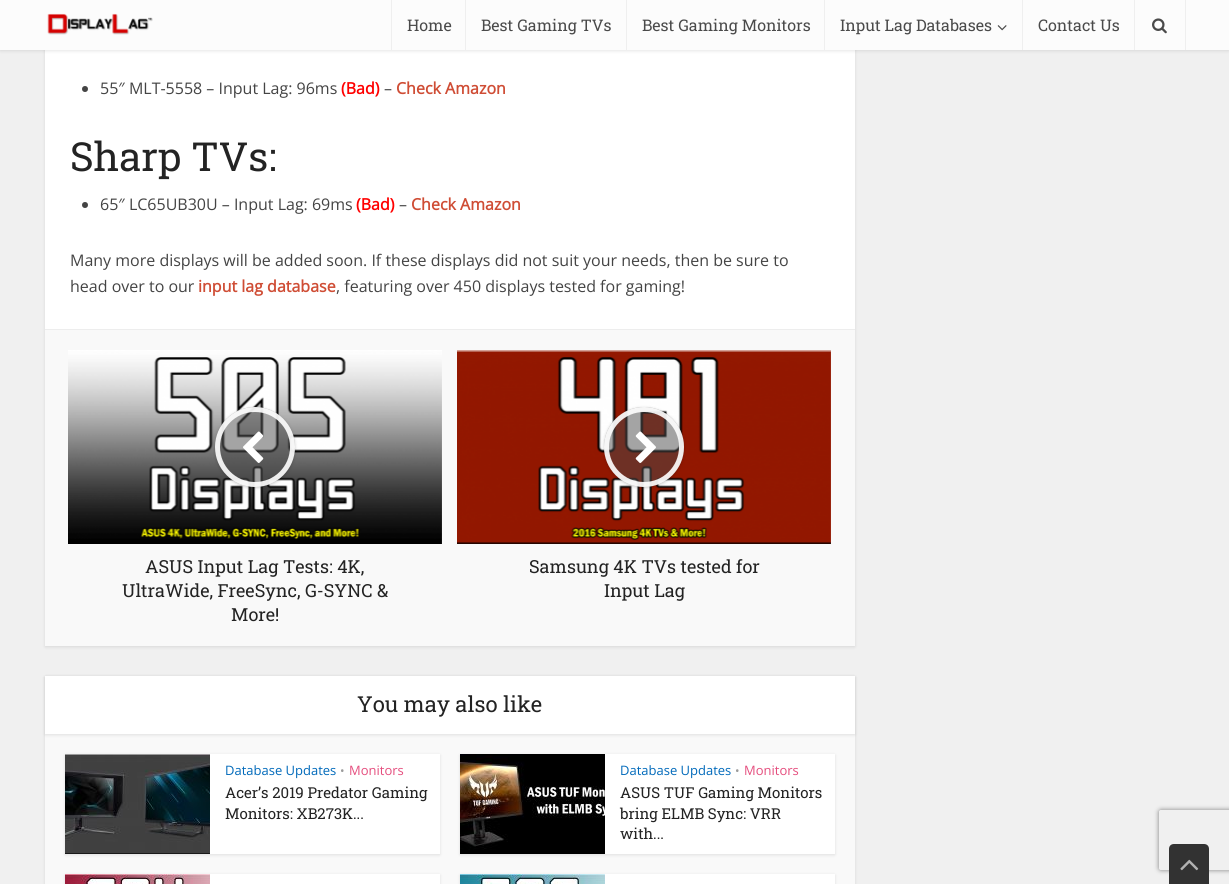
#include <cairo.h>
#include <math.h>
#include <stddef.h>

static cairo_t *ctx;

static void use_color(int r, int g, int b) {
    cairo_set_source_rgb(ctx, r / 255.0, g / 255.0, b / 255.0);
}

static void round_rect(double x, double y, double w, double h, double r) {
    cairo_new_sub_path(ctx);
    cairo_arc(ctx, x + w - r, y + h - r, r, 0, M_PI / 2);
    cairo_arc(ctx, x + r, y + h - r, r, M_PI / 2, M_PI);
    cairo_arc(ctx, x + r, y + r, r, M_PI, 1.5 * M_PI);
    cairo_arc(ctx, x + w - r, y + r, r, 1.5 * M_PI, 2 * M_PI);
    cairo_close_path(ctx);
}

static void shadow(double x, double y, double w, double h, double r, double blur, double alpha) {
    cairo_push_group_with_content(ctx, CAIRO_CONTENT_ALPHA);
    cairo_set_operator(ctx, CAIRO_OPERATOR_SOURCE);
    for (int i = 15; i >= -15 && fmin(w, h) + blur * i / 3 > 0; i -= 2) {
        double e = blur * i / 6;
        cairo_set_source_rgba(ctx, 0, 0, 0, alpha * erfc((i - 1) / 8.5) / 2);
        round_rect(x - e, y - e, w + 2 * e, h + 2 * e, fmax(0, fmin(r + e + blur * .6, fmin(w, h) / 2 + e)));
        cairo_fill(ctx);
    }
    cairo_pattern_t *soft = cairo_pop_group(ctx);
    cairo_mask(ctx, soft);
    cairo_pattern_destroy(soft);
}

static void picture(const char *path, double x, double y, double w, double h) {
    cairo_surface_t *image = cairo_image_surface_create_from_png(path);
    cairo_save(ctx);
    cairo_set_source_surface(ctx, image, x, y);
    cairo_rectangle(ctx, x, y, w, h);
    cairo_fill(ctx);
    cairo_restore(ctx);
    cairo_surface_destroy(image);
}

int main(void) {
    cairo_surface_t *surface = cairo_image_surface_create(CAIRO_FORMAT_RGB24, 1229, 884);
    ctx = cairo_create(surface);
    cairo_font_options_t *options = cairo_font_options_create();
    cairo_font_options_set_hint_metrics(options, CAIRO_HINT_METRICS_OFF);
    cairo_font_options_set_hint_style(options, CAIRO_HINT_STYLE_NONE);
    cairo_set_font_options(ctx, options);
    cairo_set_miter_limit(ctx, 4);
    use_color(240, 240, 240);
    cairo_paint(ctx);
    use_color(0, 0, 0);
    shadow(45, -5, 810, 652, 0, 1.5, 0.1);
    use_color(255, 255, 255);
    cairo_rectangle(ctx, 45, 50, 810, 279);
    cairo_fill(ctx);
    use_color(0, 0, 0);
    shadow(0, 1, 1229, 50, 0, 1.5, 0.1);
    use_color(252, 252, 252);
    cairo_rectangle(ctx, 0, 0, 1229, 50);
    cairo_fill(ctx);
    picture("img1.png", 47, 13, 106, 22);
    use_color(239, 239, 239);
    cairo_rectangle(ctx, 391, 0, 1, 50);
    cairo_fill(ctx);
    cairo_select_font_face(ctx, "Roboto Slab", CAIRO_FONT_SLANT_NORMAL, CAIRO_FONT_WEIGHT_NORMAL);
    cairo_set_font_size(ctx, 16);
    use_color(74, 74, 74);
    cairo_move_to(ctx, 407, 31);
    cairo_show_text(ctx, "Home");
    use_color(239, 239, 239);
    cairo_rectangle(ctx, 465, 0, 1, 50);
    cairo_fill(ctx);
    use_color(74, 74, 74);
    cairo_move_to(ctx, 481, 31);
    cairo_show_text(ctx, "Best Gaming TVs");
    use_color(239, 239, 239);
    cairo_rectangle(ctx, 626, 0, 1, 50);
    cairo_fill(ctx);
    use_color(74, 74, 74);
    cairo_move_to(ctx, 642, 31);
    cairo_show_text(ctx, "Best Gaming Monitors");
    use_color(239, 239, 239);
    cairo_rectangle(ctx, 824, 0, 1, 50);
    cairo_fill(ctx);
    use_color(74, 74, 74);
    cairo_move_to(ctx, 840, 31);
    cairo_show_text(ctx, "Input Lag Databases");
    picture("img2.png", 997, 25, 10, 6);
    use_color(239, 239, 239);
    cairo_rectangle(ctx, 1022, 0, 1, 50);
    cairo_fill(ctx);
    use_color(74, 74, 74);
    cairo_move_to(ctx, 1038, 31);
    cairo_show_text(ctx, "Contact Us");
    use_color(239, 239, 239);
    cairo_rectangle(ctx, 1185, 0, 1, 50);
    cairo_fill(ctx);
    cairo_rectangle(ctx, 1134, 0, 1, 50);
    cairo_fill(ctx);
    picture("img3.png", 1152, 18, 15, 16);
    use_color(68, 68, 68);
    cairo_arc(ctx, 85, 89, 3, 0, 2 * M_PI);
    cairo_fill(ctx);
    cairo_select_font_face(ctx, "Open Sans", CAIRO_FONT_SLANT_NORMAL, CAIRO_FONT_WEIGHT_NORMAL);
    cairo_move_to(ctx, 100, 94);
    cairo_show_text(ctx, "55″ MLT-5558 – Input Lag: 96ms");
    cairo_select_font_face(ctx, "Open Sans", CAIRO_FONT_SLANT_NORMAL, CAIRO_FONT_WEIGHT_BOLD);
    use_color(255, 0, 0);
    cairo_move_to(ctx, 341, 94);
    cairo_show_text(ctx, "(Bad)");
    cairo_select_font_face(ctx, "Open Sans", CAIRO_FONT_SLANT_NORMAL, CAIRO_FONT_WEIGHT_NORMAL);
    use_color(68, 68, 68);
    cairo_move_to(ctx, 384, 94);
    cairo_show_text(ctx, "–");
    cairo_select_font_face(ctx, "Open Sans", CAIRO_FONT_SLANT_NORMAL, CAIRO_FONT_WEIGHT_BOLD);
    use_color(207, 77, 53);
    cairo_move_to(ctx, 396, 94);
    cairo_show_text(ctx, "Check Amazon");
    cairo_select_font_face(ctx, "Roboto Slab", CAIRO_FONT_SLANT_NORMAL, CAIRO_FONT_WEIGHT_NORMAL);
    cairo_set_font_size(ctx, 40);
    use_color(35, 35, 35);
    cairo_move_to(ctx, 70, 171);
    cairo_show_text(ctx, "Sharp TVs:");
    use_color(68, 68, 68);
    cairo_new_path(ctx);
    cairo_arc(ctx, 85, 205, 3, 0, 2 * M_PI);
    cairo_fill(ctx);
    cairo_select_font_face(ctx, "Open Sans", CAIRO_FONT_SLANT_NORMAL, CAIRO_FONT_WEIGHT_NORMAL);
    cairo_set_font_size(ctx, 16);
    cairo_move_to(ctx, 100, 210);
    cairo_show_text(ctx, "65″ LC65UB30U – Input Lag: 69ms");
    cairo_select_font_face(ctx, "Open Sans", CAIRO_FONT_SLANT_NORMAL, CAIRO_FONT_WEIGHT_BOLD);
    use_color(255, 0, 0);
    cairo_move_to(ctx, 356, 210);
    cairo_show_text(ctx, "(Bad)");
    cairo_select_font_face(ctx, "Open Sans", CAIRO_FONT_SLANT_NORMAL, CAIRO_FONT_WEIGHT_NORMAL);
    use_color(68, 68, 68);
    cairo_move_to(ctx, 399, 210);
    cairo_show_text(ctx, "–");
    cairo_select_font_face(ctx, "Open Sans", CAIRO_FONT_SLANT_NORMAL, CAIRO_FONT_WEIGHT_BOLD);
    use_color(207, 77, 53);
    cairo_move_to(ctx, 411, 210);
    cairo_show_text(ctx, "Check Amazon");
    cairo_select_font_face(ctx, "Open Sans", CAIRO_FONT_SLANT_NORMAL, CAIRO_FONT_WEIGHT_NORMAL);
    use_color(68, 68, 68);
    cairo_move_to(ctx, 70, 266);
    cairo_show_text(ctx, "Many more displays will be added soon. If these displays did not suit your needs, then be sure to");
    cairo_move_to(ctx, 70, 292);
    cairo_show_text(ctx, "head over to our");
    cairo_select_font_face(ctx, "Open Sans", CAIRO_FONT_SLANT_NORMAL, CAIRO_FONT_WEIGHT_BOLD);
    use_color(207, 77, 53);
    cairo_move_to(ctx, 198, 292);
    cairo_show_text(ctx, "input lag database");
    cairo_select_font_face(ctx, "Open Sans", CAIRO_FONT_SLANT_NORMAL, CAIRO_FONT_WEIGHT_NORMAL);
    use_color(68, 68, 68);
    cairo_move_to(ctx, 336, 292);
    cairo_show_text(ctx, ", featuring over 450 displays tested for gaming!");
    use_color(249, 249, 249);
    cairo_rectangle(ctx, 45, 330, 810, 316);
    cairo_fill(ctx);
    use_color(237, 237, 237);
    cairo_rectangle(ctx, 45, 329, 810, 1);
    cairo_fill(ctx);
    picture("img4.png", 68, 350, 374, 194);
    cairo_save(ctx);
    cairo_set_fill_rule(ctx, CAIRO_FILL_RULE_EVEN_ODD);
    cairo_new_path(ctx);
    cairo_move_to(ctx, 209, 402);
    cairo_line_to(ctx, 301, 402);
    cairo_line_to(ctx, 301, 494);
    cairo_line_to(ctx, 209, 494);
    cairo_close_path(ctx);
    cairo_move_to(ctx, 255, 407);
    cairo_curve_to(ctx, 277, 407, 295, 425, 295, 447);
    cairo_curve_to(ctx, 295, 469, 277, 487, 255, 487);
    cairo_curve_to(ctx, 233, 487, 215, 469, 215, 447);
    cairo_curve_to(ctx, 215, 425, 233, 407, 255, 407);
    cairo_close_path(ctx);
    cairo_clip(ctx);
    use_color(0, 0, 0);
    shadow(215, 408, 80, 80, 40, 1.5, 0.2);
    cairo_restore(ctx);
    cairo_set_source_rgba(ctx, 0.29, 0.29, 0.29, 0.5);
    cairo_arc(ctx, 255, 447, 40, 0, 2 * M_PI);
    cairo_fill(ctx);
    cairo_arc(ctx, 255, 447, 37.5, 0, 2 * M_PI);
    cairo_set_source_rgba(ctx, 1, 1, 1, 0.9);
    cairo_set_line_width(ctx, 5);
    cairo_stroke(ctx);
    picture("img5.png", 243, 431, 21, 32);
    cairo_select_font_face(ctx, "Roboto Slab", CAIRO_FONT_SLANT_NORMAL, CAIRO_FONT_WEIGHT_NORMAL);
    cairo_set_font_size(ctx, 18);
    use_color(35, 35, 35);
    cairo_move_to(ctx, 145, 573);
    cairo_show_text(ctx, "ASUS Input Lag Tests: 4K,");
    cairo_move_to(ctx, 122, 597);
    cairo_show_text(ctx, "UltraWide, FreeSync, G-SYNC &");
    cairo_move_to(ctx, 231, 621);
    cairo_show_text(ctx, "More!");
    picture("img6.png", 457, 350, 374, 194);
    cairo_save(ctx);
    cairo_set_fill_rule(ctx, CAIRO_FILL_RULE_EVEN_ODD);
    cairo_new_path(ctx);
    cairo_move_to(ctx, 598, 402);
    cairo_line_to(ctx, 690, 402);
    cairo_line_to(ctx, 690, 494);
    cairo_line_to(ctx, 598, 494);
    cairo_close_path(ctx);
    cairo_move_to(ctx, 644, 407);
    cairo_curve_to(ctx, 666, 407, 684, 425, 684, 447);
    cairo_curve_to(ctx, 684, 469, 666, 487, 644, 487);
    cairo_curve_to(ctx, 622, 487, 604, 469, 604, 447);
    cairo_curve_to(ctx, 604, 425, 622, 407, 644, 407);
    cairo_close_path(ctx);
    cairo_clip(ctx);
    use_color(0, 0, 0);
    shadow(604, 408, 80, 80, 40, 1.5, 0.2);
    cairo_restore(ctx);
    cairo_set_source_rgba(ctx, 0.29, 0.29, 0.29, 0.5);
    cairo_arc(ctx, 644, 447, 40, 0, 2 * M_PI);
    cairo_fill(ctx);
    cairo_arc(ctx, 644, 447, 37.5, 0, 2 * M_PI);
    cairo_set_source_rgba(ctx, 1, 1, 1, 0.9);
    cairo_stroke(ctx);
    picture("img7.png", 635, 431, 21, 32);
    use_color(35, 35, 35);
    cairo_move_to(ctx, 529, 573);
    cairo_show_text(ctx, "Samsung 4K TVs tested for");
    cairo_move_to(ctx, 604, 597);
    cairo_show_text(ctx, "Input Lag");
    use_color(0, 0, 0);
    shadow(45, 677, 810, 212, 0, 1.5, 0.1);
    use_color(249, 249, 249);
    cairo_rectangle(ctx, 45, 734, 810, 150);
    cairo_fill(ctx);
    use_color(0, 0, 0);
    shadow(45, 677, 810, 58, 0, 1.5, 0.1);
    use_color(255, 255, 255);
    cairo_rectangle(ctx, 45, 676, 810, 58);
    cairo_fill(ctx);
    cairo_set_font_size(ctx, 22);
    use_color(35, 35, 35);
    cairo_move_to(ctx, 357, 712);
    cairo_show_text(ctx, "You may also like");
    use_color(0, 0, 0);
    shadow(65, 755, 375, 100, 0, 1.5, 0.1);
    use_color(255, 255, 255);
    cairo_rectangle(ctx, 210, 754, 230, 100);
    cairo_fill(ctx);
    picture("img8.png", 65, 754, 145, 100);
    cairo_select_font_face(ctx, "Open Sans", CAIRO_FONT_SLANT_NORMAL, CAIRO_FONT_WEIGHT_NORMAL);
    cairo_set_font_size(ctx, 13);
    use_color(0, 105, 186);
    cairo_move_to(ctx, 225, 775);
    cairo_show_text(ctx, "Database Updates");
    cairo_set_font_size(ctx, 12);
    use_color(155, 155, 155);
    cairo_move_to(ctx, 340, 775);
    cairo_show_text(ctx, "•");
    cairo_set_font_size(ctx, 13);
    use_color(229, 78, 126);
    cairo_move_to(ctx, 349, 775);
    cairo_show_text(ctx, "Monitors");
    cairo_select_font_face(ctx, "Roboto Slab", CAIRO_FONT_SLANT_NORMAL, CAIRO_FONT_WEIGHT_NORMAL);
    cairo_set_font_size(ctx, 15);
    use_color(35, 35, 35);
    cairo_move_to(ctx, 225, 798);
    cairo_show_text(ctx, "Acer’s 2019 Predator Gaming");
    cairo_move_to(ctx, 225, 819);
    cairo_show_text(ctx, "Monitors: XB273K...");
    use_color(0, 0, 0);
    shadow(460, 755, 375, 100, 0, 1.5, 0.1);
    use_color(255, 255, 255);
    cairo_rectangle(ctx, 605, 754, 230, 100);
    cairo_fill(ctx);
    picture("img9.png", 460, 754, 145, 100);
    cairo_select_font_face(ctx, "Open Sans", CAIRO_FONT_SLANT_NORMAL, CAIRO_FONT_WEIGHT_NORMAL);
    cairo_set_font_size(ctx, 13);
    use_color(0, 105, 186);
    cairo_move_to(ctx, 620, 775);
    cairo_show_text(ctx, "Database Updates");
    cairo_set_font_size(ctx, 12);
    use_color(155, 155, 155);
    cairo_move_to(ctx, 735, 775);
    cairo_show_text(ctx, "•");
    cairo_set_font_size(ctx, 13);
    use_color(229, 78, 126);
    cairo_move_to(ctx, 744, 775);
    cairo_show_text(ctx, "Monitors");
    cairo_select_font_face(ctx, "Roboto Slab", CAIRO_FONT_SLANT_NORMAL, CAIRO_FONT_WEIGHT_NORMAL);
    cairo_set_font_size(ctx, 15);
    use_color(35, 35, 35);
    cairo_move_to(ctx, 620, 798);
    cairo_show_text(ctx, "ASUS TUF Gaming Monitors");
    cairo_move_to(ctx, 620, 819);
    cairo_show_text(ctx, "bring ELMB Sync: VRR");
    cairo_move_to(ctx, 620, 839);
    cairo_show_text(ctx, "with...");
    use_color(0, 0, 0);
    shadow(65, 875, 375, 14, 0, 1.5, 0.1);
    use_color(255, 255, 255);
    cairo_rectangle(ctx, 210, 874, 230, 10);
    cairo_fill(ctx);
    picture("img10.png", 65, 874, 145, 10);
    use_color(0, 0, 0);
    shadow(460, 875, 375, 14, 0, 1.5, 0.1);
    use_color(255, 255, 255);
    cairo_rectangle(ctx, 605, 874, 230, 10);
    cairo_fill(ctx);
    picture("img11.png", 460, 874, 145, 10);
    cairo_save(ctx);
    cairo_set_fill_rule(ctx, CAIRO_FILL_RULE_EVEN_ODD);
    cairo_new_path(ctx);
    cairo_move_to(ctx, 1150, 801);
    cairo_line_to(ctx, 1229, 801);
    cairo_line_to(ctx, 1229, 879);
    cairo_line_to(ctx, 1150, 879);
    cairo_close_path(ctx);
    cairo_move_to(ctx, 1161, 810);
    cairo_line_to(ctx, 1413, 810);
    cairo_curve_to(ctx, 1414, 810, 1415, 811, 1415, 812);
    cairo_line_to(ctx, 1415, 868);
    cairo_curve_to(ctx, 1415, 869, 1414, 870, 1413, 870);
    cairo_line_to(ctx, 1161, 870);
    cairo_curve_to(ctx, 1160, 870, 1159, 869, 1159, 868);
    cairo_line_to(ctx, 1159, 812);
    cairo_curve_to(ctx, 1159, 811, 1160, 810, 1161, 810);
    cairo_close_path(ctx);
    cairo_clip(ctx);
    use_color(128, 128, 128);
    shadow(1159, 810, 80, 60, 2, 2.5, 1);
    cairo_restore(ctx);
    use_color(50, 50, 50);
    cairo_new_path(ctx);
    cairo_move_to(ctx, 1174, 844);
    cairo_line_to(ctx, 1204, 844);
    cairo_curve_to(ctx, 1207, 844, 1209, 846, 1209, 849);
    cairo_line_to(ctx, 1209, 884);
    cairo_line_to(ctx, 1169, 884);
    cairo_line_to(ctx, 1169, 849);
    cairo_curve_to(ctx, 1169, 846, 1171, 844, 1174, 844);
    cairo_close_path(ctx);
    cairo_fill(ctx);
    picture("img12.png", 1180, 859, 19, 12);
    cairo_surface_write_to_png(surface, "result.png");
    cairo_font_options_destroy(options);
    cairo_destroy(ctx);
    cairo_surface_destroy(surface);
    return 0;
}
